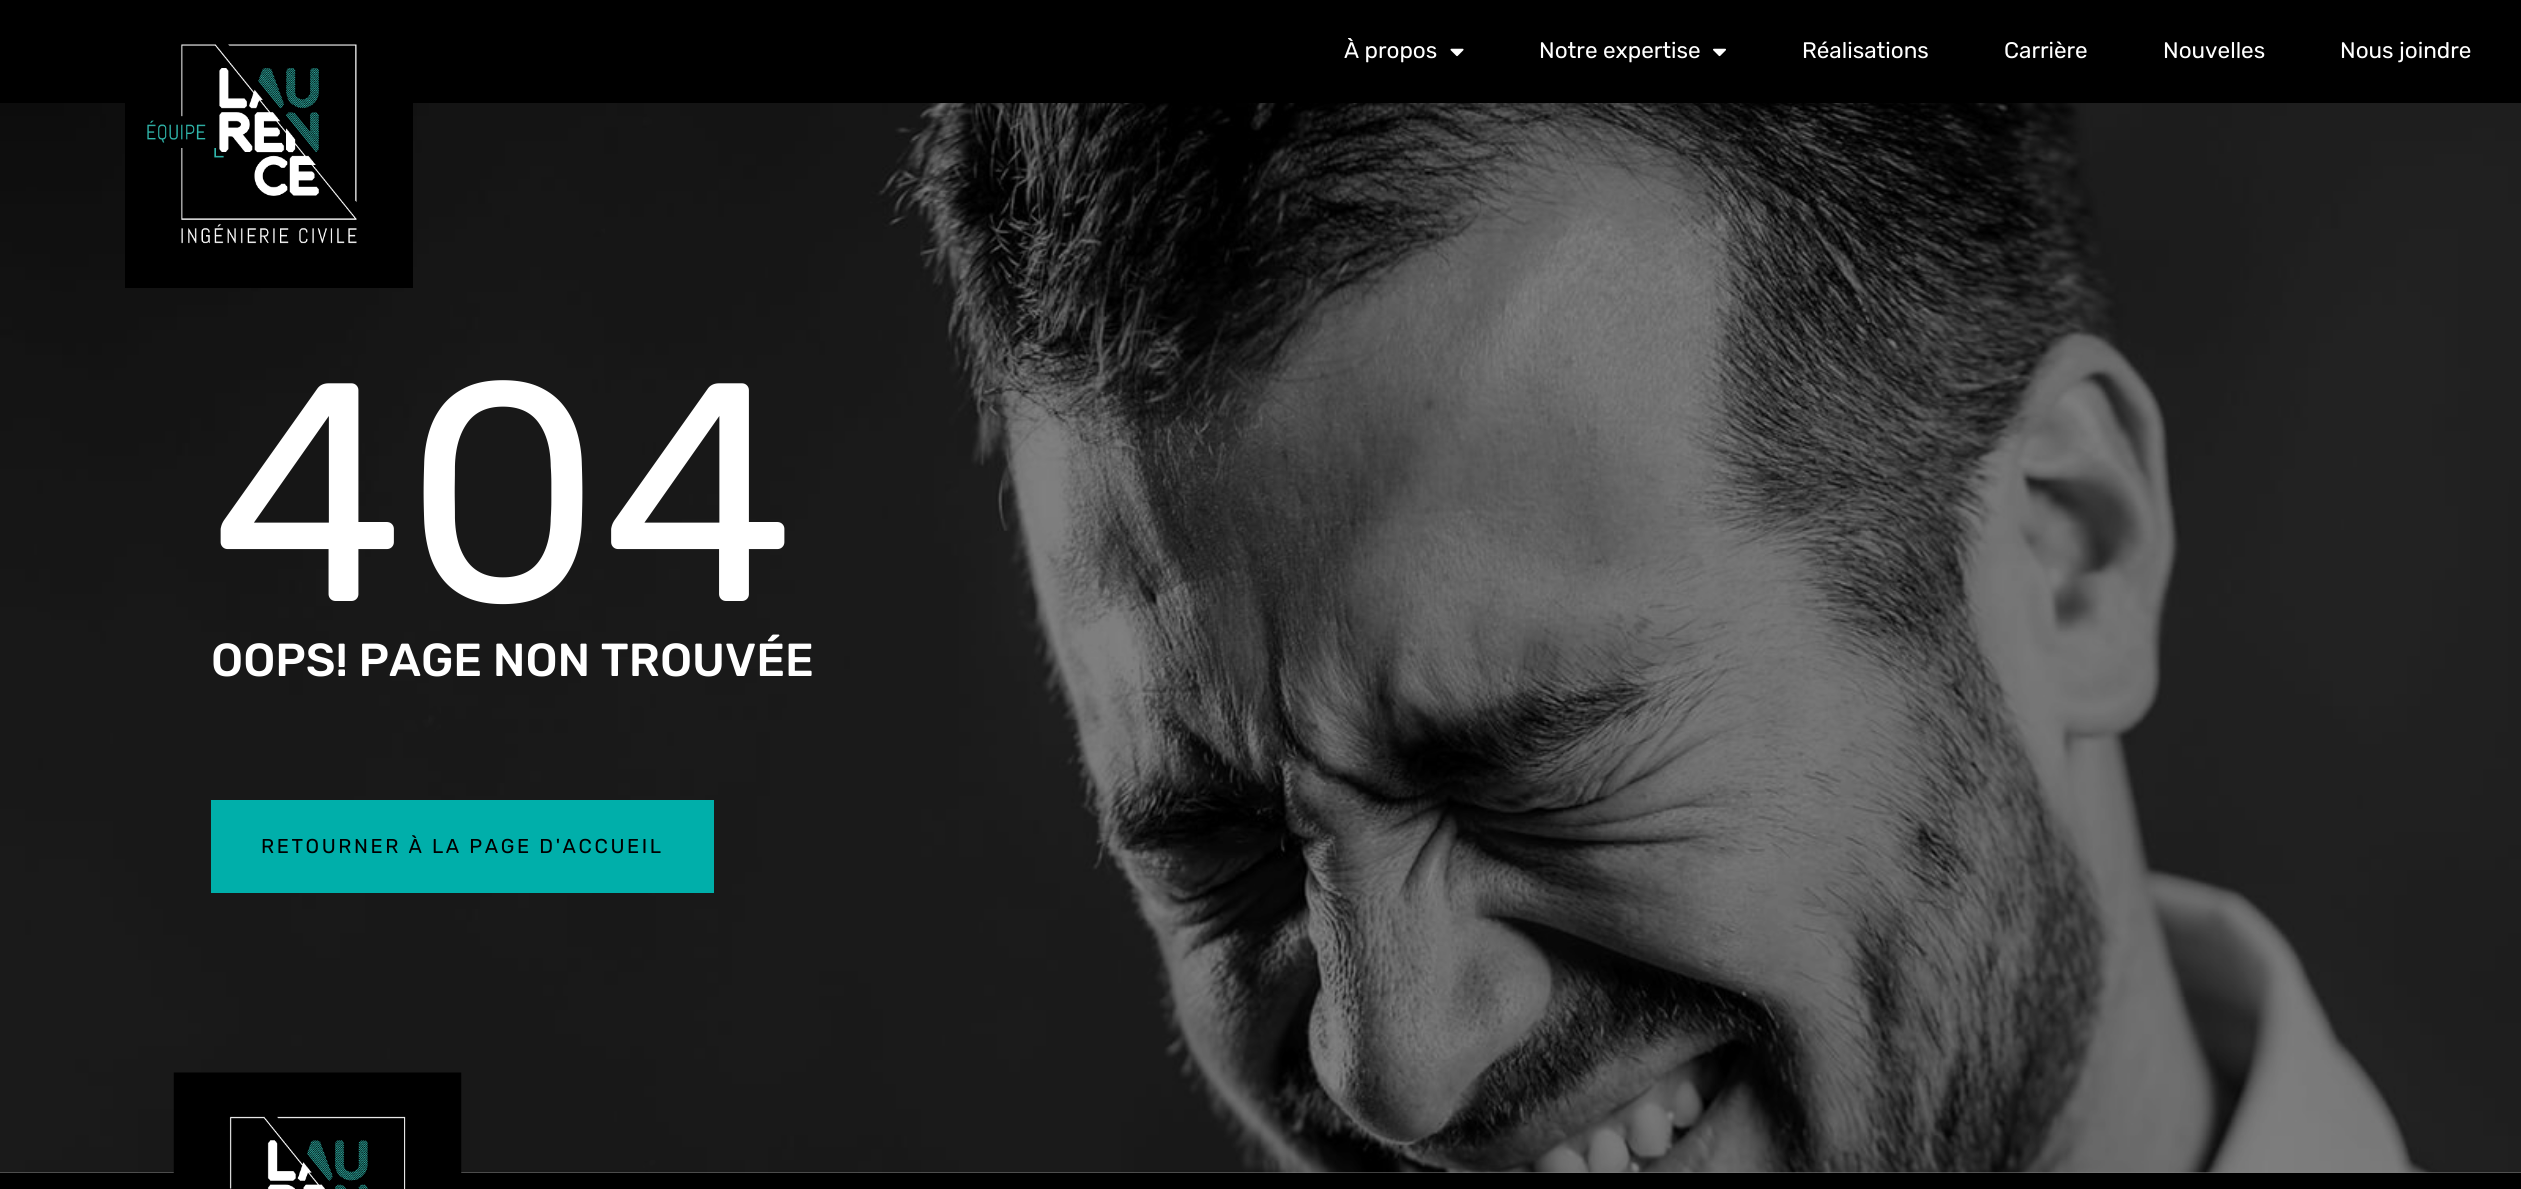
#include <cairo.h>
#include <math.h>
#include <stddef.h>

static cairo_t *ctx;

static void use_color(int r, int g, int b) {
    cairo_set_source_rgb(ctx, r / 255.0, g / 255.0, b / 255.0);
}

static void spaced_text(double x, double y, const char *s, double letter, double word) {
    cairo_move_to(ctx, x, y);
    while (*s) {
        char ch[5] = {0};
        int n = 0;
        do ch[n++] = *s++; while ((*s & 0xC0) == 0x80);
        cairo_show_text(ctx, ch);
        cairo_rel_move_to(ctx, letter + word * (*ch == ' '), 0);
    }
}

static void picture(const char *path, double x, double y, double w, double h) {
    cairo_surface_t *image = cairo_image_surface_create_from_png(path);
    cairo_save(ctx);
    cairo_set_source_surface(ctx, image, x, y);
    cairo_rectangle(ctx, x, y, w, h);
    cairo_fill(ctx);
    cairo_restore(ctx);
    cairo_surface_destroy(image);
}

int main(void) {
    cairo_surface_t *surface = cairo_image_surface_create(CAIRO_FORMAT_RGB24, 2521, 1189);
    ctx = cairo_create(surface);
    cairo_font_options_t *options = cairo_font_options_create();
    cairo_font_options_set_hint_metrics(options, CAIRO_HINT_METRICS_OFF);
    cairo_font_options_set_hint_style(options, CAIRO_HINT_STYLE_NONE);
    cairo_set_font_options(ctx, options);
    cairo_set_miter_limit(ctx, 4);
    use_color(128, 128, 128);
    cairo_paint(ctx);
    use_color(0, 0, 0);
    cairo_rectangle(ctx, 0, 0, 2521, 103);
    cairo_fill(ctx);
    picture("img4.png", 0, 103, 2521, 1070);
    picture("img1.png", 125, 44, 288, 244);
    cairo_select_font_face(ctx, "Rubik", CAIRO_FONT_SLANT_NORMAL, CAIRO_FONT_WEIGHT_NORMAL);
    cairo_set_font_size(ctx, 22.5);
    use_color(255, 255, 255);
    cairo_move_to(ctx, 1344, 58);
    cairo_show_text(ctx, "À propos");
    picture("img2.png", 1450, 48, 14, 9);
    cairo_move_to(ctx, 1539, 58);
    cairo_show_text(ctx, "Notre expertise");
    picture("img3.png", 1713, 48, 13, 9);
    cairo_move_to(ctx, 1802, 58);
    cairo_show_text(ctx, "Réalisations");
    cairo_move_to(ctx, 2004, 58);
    cairo_show_text(ctx, "Carrière");
    cairo_move_to(ctx, 2163, 58);
    cairo_show_text(ctx, "Nouvelles");
    cairo_move_to(ctx, 2340, 58);
    cairo_show_text(ctx, "Nous joindre");
    cairo_set_font_size(ctx, 311);
    cairo_move_to(ctx, 211, 601);
    cairo_show_text(ctx, "404");
    cairo_select_font_face(ctx, "Rubik Medium", CAIRO_FONT_SLANT_NORMAL, CAIRO_FONT_WEIGHT_NORMAL);
    cairo_set_font_size(ctx, 46.25);
    cairo_move_to(ctx, 211, 676);
    cairo_show_text(ctx, "OOPS! PAGE NON TROUVÉE");
    use_color(0, 175, 170);
    cairo_rectangle(ctx, 211, 800, 503, 93);
    cairo_fill(ctx);
    cairo_select_font_face(ctx, "Rubik", CAIRO_FONT_SLANT_NORMAL, CAIRO_FONT_WEIGHT_NORMAL);
    cairo_set_font_size(ctx, 20);
    use_color(0, 0, 0);
    spaced_text(261, 853, "RETOURNER À LA PAGE D'ACCUEIL", 2.6, 0);
    cairo_rectangle(ctx, 0, 1173, 2521, 16);
    cairo_fill(ctx);
    picture("img5.png", 173, 1072, 289, 117);
    cairo_surface_write_to_png(surface, "result.png");
    cairo_font_options_destroy(options);
    cairo_destroy(ctx);
    cairo_surface_destroy(surface);
    return 0;
}
